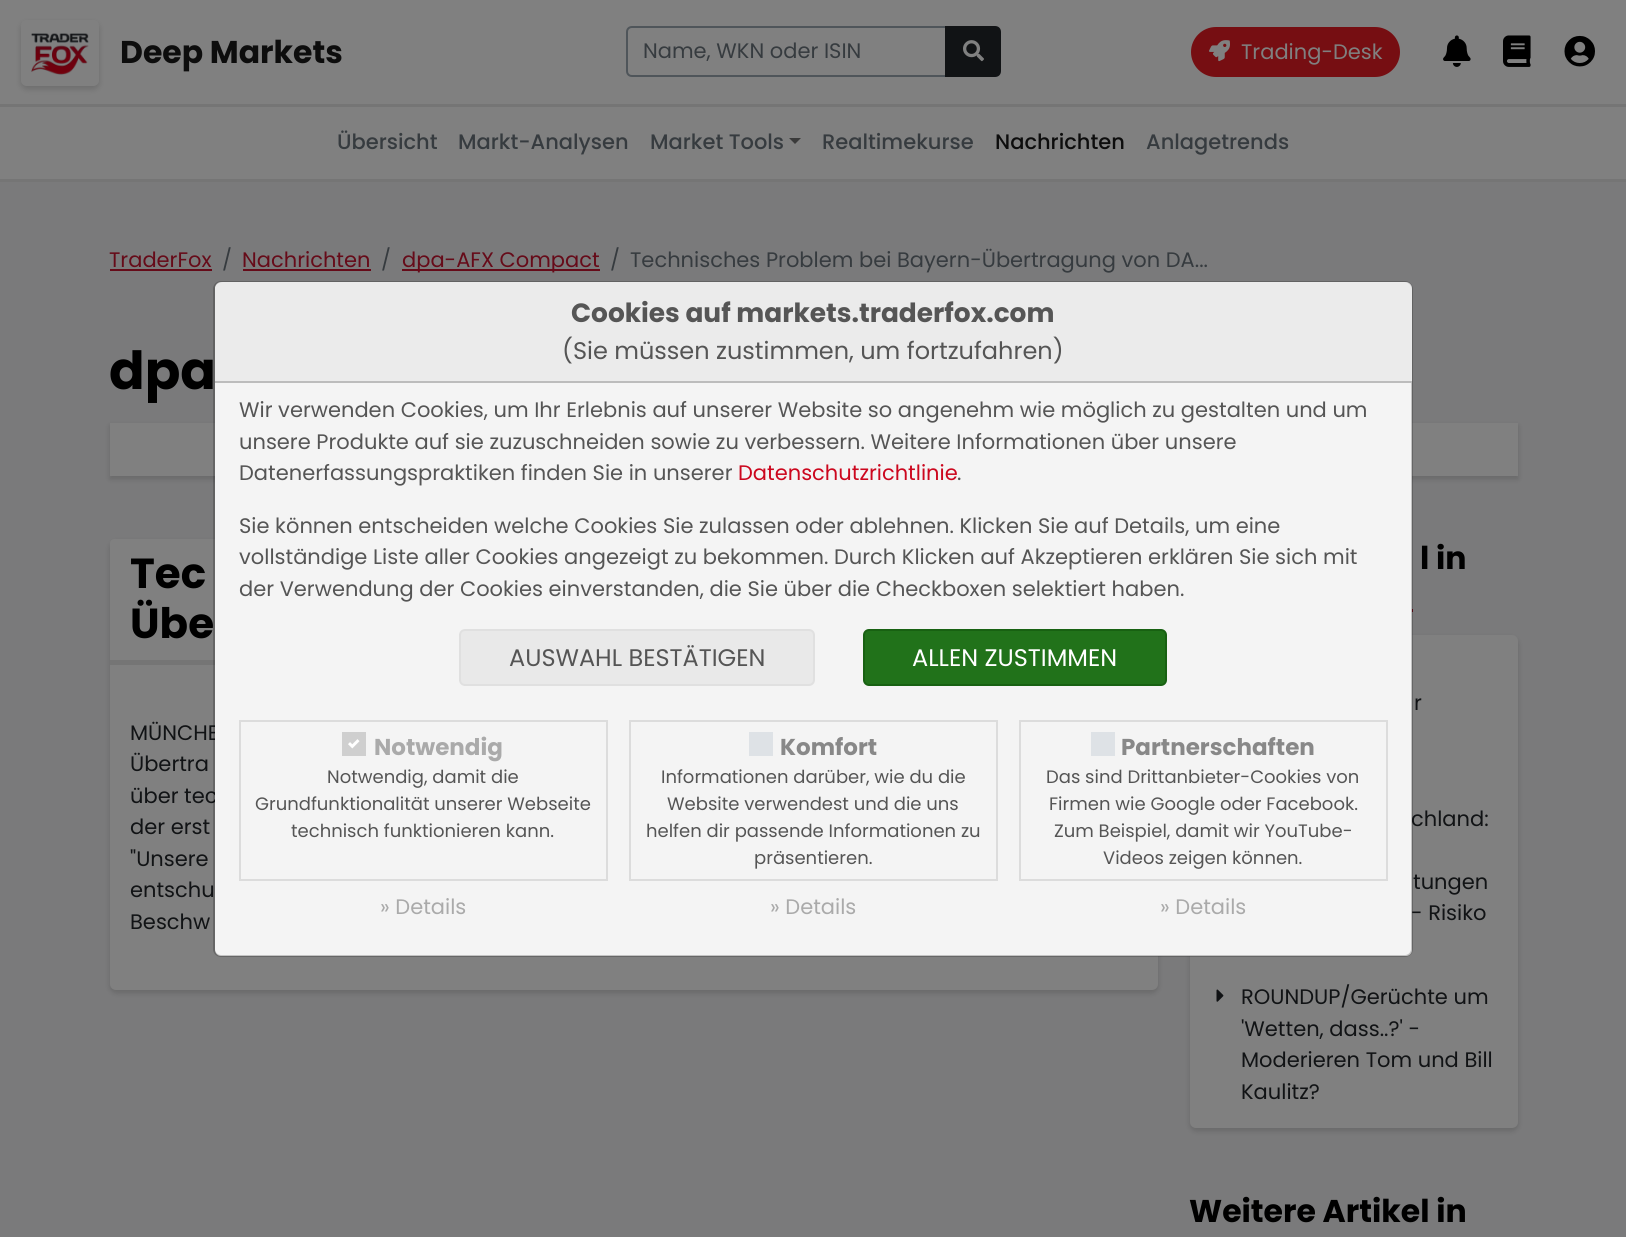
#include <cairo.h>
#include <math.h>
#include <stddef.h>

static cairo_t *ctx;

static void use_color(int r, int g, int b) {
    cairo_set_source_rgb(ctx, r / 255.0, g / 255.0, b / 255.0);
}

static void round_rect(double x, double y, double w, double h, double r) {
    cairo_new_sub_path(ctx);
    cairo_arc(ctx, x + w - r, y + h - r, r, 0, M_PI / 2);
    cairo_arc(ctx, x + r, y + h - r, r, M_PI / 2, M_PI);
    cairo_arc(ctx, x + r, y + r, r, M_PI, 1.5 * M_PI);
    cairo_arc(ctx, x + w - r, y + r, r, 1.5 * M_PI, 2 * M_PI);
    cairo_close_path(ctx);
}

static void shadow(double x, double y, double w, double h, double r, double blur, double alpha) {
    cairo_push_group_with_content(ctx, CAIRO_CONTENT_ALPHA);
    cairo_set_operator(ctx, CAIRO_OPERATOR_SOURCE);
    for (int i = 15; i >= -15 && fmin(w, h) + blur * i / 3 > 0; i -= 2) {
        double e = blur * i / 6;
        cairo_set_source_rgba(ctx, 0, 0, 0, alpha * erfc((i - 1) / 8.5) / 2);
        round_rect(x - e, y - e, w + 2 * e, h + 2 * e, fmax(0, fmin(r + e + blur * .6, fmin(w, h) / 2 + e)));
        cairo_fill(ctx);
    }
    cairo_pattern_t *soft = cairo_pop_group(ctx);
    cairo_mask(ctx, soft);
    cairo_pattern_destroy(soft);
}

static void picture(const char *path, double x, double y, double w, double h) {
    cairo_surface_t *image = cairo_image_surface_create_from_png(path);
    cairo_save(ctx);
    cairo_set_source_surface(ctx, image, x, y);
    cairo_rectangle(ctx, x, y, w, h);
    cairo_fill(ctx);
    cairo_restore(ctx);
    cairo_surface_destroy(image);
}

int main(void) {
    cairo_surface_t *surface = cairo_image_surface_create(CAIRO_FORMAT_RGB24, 1626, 1237);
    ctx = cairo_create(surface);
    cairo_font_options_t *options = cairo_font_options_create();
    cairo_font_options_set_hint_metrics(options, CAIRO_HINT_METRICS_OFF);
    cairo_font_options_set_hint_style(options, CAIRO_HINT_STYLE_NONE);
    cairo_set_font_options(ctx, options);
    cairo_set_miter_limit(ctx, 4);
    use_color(122, 122, 123);
    cairo_paint(ctx);
    use_color(128, 128, 128);
    cairo_rectangle(ctx, 0, 0, 1626, 104);
    cairo_fill(ctx);
    use_color(117, 117, 117);
    cairo_rectangle(ctx, 0, 104, 1626, 3);
    cairo_fill(ctx);
    cairo_save(ctx);
    cairo_set_fill_rule(ctx, CAIRO_FILL_RULE_EVEN_ODD);
    cairo_new_path(ctx);
    cairo_move_to(ctx, 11, 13);
    cairo_line_to(ctx, 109, 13);
    cairo_line_to(ctx, 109, 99);
    cairo_line_to(ctx, 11, 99);
    cairo_close_path(ctx);
    cairo_move_to(ctx, 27, 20);
    cairo_line_to(ctx, 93, 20);
    cairo_curve_to(ctx, 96.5, 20, 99, 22.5, 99, 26);
    cairo_line_to(ctx, 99, 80);
    cairo_curve_to(ctx, 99, 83.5, 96.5, 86, 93, 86);
    cairo_line_to(ctx, 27, 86);
    cairo_curve_to(ctx, 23.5, 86, 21, 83.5, 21, 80);
    cairo_line_to(ctx, 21, 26);
    cairo_curve_to(ctx, 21, 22.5, 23.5, 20, 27, 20);
    cairo_close_path(ctx);
    cairo_clip(ctx);
    use_color(0, 0, 0);
    shadow(21, 23, 78, 66, 6, 3, 0.15);
    cairo_restore(ctx);
    picture("img1.png", 31, 33, 58, 42);
    cairo_select_font_face(ctx, "Poppins", CAIRO_FONT_SLANT_NORMAL, CAIRO_FONT_WEIGHT_BOLD);
    cairo_set_font_size(ctx, 31.5);
    use_color(13, 13, 13);
    cairo_move_to(ctx, 120, 63);
    cairo_show_text(ctx, "Deep Markets");
    cairo_new_path(ctx);
    cairo_move_to(ctx, 632, 27);
    cairo_line_to(ctx, 946, 27);
    cairo_line_to(ctx, 946, 76);
    cairo_line_to(ctx, 632, 76);
    cairo_curve_to(ctx, 629, 76, 627, 74, 627, 71);
    cairo_line_to(ctx, 627, 32);
    cairo_curve_to(ctx, 627, 29, 629, 27, 632, 27);
    cairo_close_path(ctx);
    use_color(79, 85, 90);
    cairo_stroke(ctx);
    cairo_select_font_face(ctx, "Poppins", CAIRO_FONT_SLANT_NORMAL, CAIRO_FONT_WEIGHT_NORMAL);
    cairo_set_font_size(ctx, 21);
    use_color(54, 59, 63);
    cairo_move_to(ctx, 643, 58);
    cairo_show_text(ctx, "Name, WKN oder ISIN");
    use_color(17, 19, 21);
    cairo_new_path(ctx);
    cairo_move_to(ctx, 946, 27);
    cairo_line_to(ctx, 995, 27);
    cairo_curve_to(ctx, 998, 27, 1000, 29, 1000, 32);
    cairo_line_to(ctx, 1000, 71);
    cairo_curve_to(ctx, 1000, 74, 998, 76, 995, 76);
    cairo_line_to(ctx, 946, 76);
    cairo_close_path(ctx);
    cairo_fill_preserve(ctx);
    cairo_stroke(ctx);
    picture("img2.png", 963, 40, 21, 22);
    use_color(118, 14, 18);
    round_rect(1192, 28, 207, 48, 24);
    cairo_fill_preserve(ctx);
    cairo_stroke(ctx);
    picture("img3.png", 1209, 40, 21, 22);
    use_color(128, 128, 128);
    cairo_move_to(ctx, 1241, 59);
    cairo_show_text(ctx, "Trading-Desk");
    picture("img4.png", 1443, 35, 28, 32);
    picture("img5.png", 1503, 35, 28, 32);
    picture("img6.png", 1564, 35, 31, 32);
    cairo_rectangle(ctx, 0, 107, 1626, 72);
    cairo_fill(ctx);
    use_color(117, 117, 117);
    cairo_rectangle(ctx, 0, 179, 1626, 3);
    cairo_fill(ctx);
    cairo_select_font_face(ctx, "Poppins Medium", CAIRO_FONT_SLANT_NORMAL, CAIRO_FONT_WEIGHT_NORMAL);
    use_color(54, 59, 63);
    cairo_move_to(ctx, 337, 149);
    cairo_show_text(ctx, "Übersicht");
    cairo_move_to(ctx, 458, 149);
    cairo_show_text(ctx, "Markt-Analysen");
    cairo_move_to(ctx, 650, 149);
    cairo_show_text(ctx, "Market Tools");
    use_color(58, 58, 58);
    cairo_new_path(ctx);
    cairo_move_to(ctx, 789, 138);
    cairo_line_to(ctx, 801, 138);
    cairo_line_to(ctx, 795, 144);
    cairo_close_path(ctx);
    cairo_fill(ctx);
    use_color(54, 59, 63);
    cairo_move_to(ctx, 822, 149);
    cairo_show_text(ctx, "Realtimekurse");
    use_color(13, 13, 13);
    cairo_move_to(ctx, 995, 149);
    cairo_show_text(ctx, "Nachrichten");
    use_color(54, 59, 63);
    cairo_move_to(ctx, 1146, 149);
    cairo_show_text(ctx, "Anlagetrends");
    cairo_select_font_face(ctx, "Poppins", CAIRO_FONT_SLANT_NORMAL, CAIRO_FONT_WEIGHT_NORMAL);
    use_color(102, 11, 25);
    cairo_move_to(ctx, 109, 267);
    cairo_show_text(ctx, "TraderFox");
    cairo_rectangle(ctx, 110, 269, 102, 2);
    cairo_fill(ctx);
    use_color(54, 59, 63);
    cairo_move_to(ctx, 222, 267);
    cairo_show_text(ctx, "/");
    use_color(102, 11, 25);
    cairo_move_to(ctx, 242, 267);
    cairo_show_text(ctx, "Nachrichten");
    cairo_rectangle(ctx, 243, 269, 128, 2);
    cairo_fill(ctx);
    use_color(54, 59, 63);
    cairo_move_to(ctx, 381, 267);
    cairo_show_text(ctx, "/");
    use_color(102, 11, 25);
    cairo_rectangle(ctx, 402, 269, 198, 2);
    cairo_fill(ctx);
    cairo_move_to(ctx, 402, 267);
    cairo_show_text(ctx, "dpa-AFX Compact");
    use_color(54, 59, 63);
    cairo_move_to(ctx, 610, 267);
    cairo_show_text(ctx, "/");
    cairo_move_to(ctx, 630, 267);
    cairo_show_text(ctx, "Technisches Problem bei Bayern-Übertragung von DA...");
    cairo_select_font_face(ctx, "Poppins", CAIRO_FONT_SLANT_NORMAL, CAIRO_FONT_WEIGHT_BOLD);
    cairo_set_font_size(ctx, 52.5);
    use_color(0, 0, 0);
    cairo_move_to(ctx, 109, 389);
    cairo_show_text(ctx, "dpa");
    use_color(0, 0, 0);
    shadow(110, 426, 1408, 53, 0, 3, 0.15);
    use_color(128, 128, 128);
    cairo_rectangle(ctx, 110, 423, 105, 53);
    cairo_fill(ctx);
    cairo_rectangle(ctx, 1412, 423, 106, 53);
    cairo_fill(ctx);
    use_color(0, 0, 0);
    shadow(110, 542, 1048, 451, 6, 3, 0.15);
    use_color(128, 128, 128);
    round_rect(110, 539, 1048, 451, 6);
    cairo_fill(ctx);
    cairo_new_path(ctx);
    cairo_move_to(ctx, 114, 539);
    cairo_line_to(ctx, 916, 539);
    cairo_curve_to(ctx, 918, 539, 920, 541, 920, 543);
    cairo_line_to(ctx, 920, 665);
    cairo_line_to(ctx, 110, 665);
    cairo_line_to(ctx, 110, 543);
    cairo_curve_to(ctx, 110, 541, 112, 539, 114, 539);
    cairo_close_path(ctx);
    cairo_fill(ctx);
    use_color(117, 117, 117);
    cairo_rectangle(ctx, 110, 660, 105, 5);
    cairo_fill(ctx);
    cairo_set_font_size(ctx, 42);
    use_color(0, 0, 0);
    cairo_move_to(ctx, 130, 588);
    cairo_show_text(ctx, "Tec");
    cairo_move_to(ctx, 130, 638);
    cairo_show_text(ctx, "Übe");
    cairo_select_font_face(ctx, "Poppins", CAIRO_FONT_SLANT_NORMAL, CAIRO_FONT_WEIGHT_NORMAL);
    cairo_set_font_size(ctx, 21);
    use_color(17, 19, 21);
    cairo_move_to(ctx, 130, 740);
    cairo_show_text(ctx, "MÜNCHE");
    cairo_move_to(ctx, 130, 771);
    cairo_show_text(ctx, "Übertra");
    cairo_move_to(ctx, 130, 803);
    cairo_show_text(ctx, "über tec");
    cairo_move_to(ctx, 130, 834);
    cairo_show_text(ctx, "der erst");
    cairo_move_to(ctx, 130, 866);
    cairo_show_text(ctx, "\"Unsere");
    cairo_move_to(ctx, 130, 897);
    cairo_show_text(ctx, "entschu");
    cairo_move_to(ctx, 130, 929);
    cairo_show_text(ctx, "Beschw");
    cairo_select_font_face(ctx, "Poppins", CAIRO_FONT_SLANT_NORMAL, CAIRO_FONT_WEIGHT_BOLD);
    cairo_set_font_size(ctx, 31.5);
    use_color(0, 0, 0);
    cairo_move_to(ctx, 1420, 569);
    cairo_show_text(ctx, "l in");
    use_color(102, 11, 25);
    cairo_rectangle(ctx, 1412, 609, 1, 3);
    cairo_fill(ctx);
    use_color(0, 0, 0);
    shadow(1190, 638, 328, 493, 6, 3, 0.15);
    use_color(128, 128, 128);
    round_rect(1190, 635, 328, 493, 6);
    cairo_fill(ctx);
    cairo_select_font_face(ctx, "Poppins", CAIRO_FONT_SLANT_NORMAL, CAIRO_FONT_WEIGHT_NORMAL);
    cairo_set_font_size(ctx, 21);
    use_color(17, 19, 21);
    cairo_move_to(ctx, 1414, 710);
    cairo_show_text(ctx, "r");
    cairo_move_to(ctx, 1411, 826);
    cairo_show_text(ctx, "chland:");
    cairo_move_to(ctx, 1413, 889);
    cairo_show_text(ctx, "tungen");
    cairo_move_to(ctx, 1411, 920);
    cairo_show_text(ctx, "- Risiko");
    picture("img7.png", 1216, 989, 8, 13);
    cairo_move_to(ctx, 1241, 1004);
    cairo_show_text(ctx, "ROUNDUP/Gerüchte um");
    cairo_move_to(ctx, 1241, 1036);
    cairo_show_text(ctx, "'Wetten, dass..?' -");
    cairo_move_to(ctx, 1241, 1067);
    cairo_show_text(ctx, "Moderieren Tom und Bill");
    cairo_move_to(ctx, 1241, 1099);
    cairo_show_text(ctx, "Kaulitz?");
    cairo_select_font_face(ctx, "Poppins", CAIRO_FONT_SLANT_NORMAL, CAIRO_FONT_WEIGHT_BOLD);
    cairo_set_font_size(ctx, 31.5);
    use_color(0, 0, 0);
    cairo_move_to(ctx, 1189, 1222);
    cairo_show_text(ctx, "Weitere Artikel in");
    use_color(244, 244, 244);
    round_rect(215, 282, 1197, 674, 6);
    cairo_fill(ctx);
    round_rect(214, 282, 1198, 674, 7);
    cairo_set_source_rgba(ctx, 0, 0, 0, 0.2);
    cairo_stroke(ctx);
    use_color(235, 235, 235);
    cairo_new_path(ctx);
    cairo_move_to(ctx, 223, 282);
    cairo_line_to(ctx, 1404, 282);
    cairo_curve_to(ctx, 1408.5, 282, 1412, 285.5, 1412, 290);
    cairo_line_to(ctx, 1412, 383);
    cairo_line_to(ctx, 215, 383);
    cairo_line_to(ctx, 215, 290);
    cairo_curve_to(ctx, 215, 285.5, 218.5, 282, 223, 282);
    cairo_close_path(ctx);
    cairo_fill(ctx);
    use_color(188, 188, 188);
    cairo_rectangle(ctx, 215, 381, 1197, 2);
    cairo_fill(ctx);
    cairo_set_font_size(ctx, 26.4);
    use_color(85, 85, 85);
    cairo_move_to(ctx, 571, 322);
    cairo_show_text(ctx, "Cookies auf markets.traderfox.com");
    cairo_select_font_face(ctx, "Poppins", CAIRO_FONT_SLANT_NORMAL, CAIRO_FONT_WEIGHT_NORMAL);
    cairo_set_font_size(ctx, 24);
    cairo_move_to(ctx, 562, 359);
    cairo_show_text(ctx, "(Sie müssen zustimmen, um fortzufahren)");
    cairo_set_font_size(ctx, 21);
    cairo_move_to(ctx, 239, 417);
    cairo_show_text(ctx, "Wir verwenden Cookies, um Ihr Erlebnis auf unserer Website so angenehm wie möglich zu gestalten und um");
    cairo_move_to(ctx, 239, 449);
    cairo_show_text(ctx, "unsere Produkte auf sie zuzuschneiden sowie zu verbessern. Weitere Informationen über unsere");
    cairo_move_to(ctx, 239, 480);
    cairo_show_text(ctx, "Datenerfassungspraktiken finden Sie in unserer");
    use_color(204, 7, 30);
    cairo_move_to(ctx, 738, 480);
    cairo_show_text(ctx, "Datenschutzrichtlinie");
    use_color(85, 85, 85);
    cairo_move_to(ctx, 957, 480);
    cairo_show_text(ctx, ".");
    cairo_move_to(ctx, 239, 533);
    cairo_show_text(ctx, "Sie können entscheiden welche Cookies Sie zulassen oder ablehnen. Klicken Sie auf Details, um eine");
    cairo_move_to(ctx, 239, 564);
    cairo_show_text(ctx, "vollständige Liste aller Cookies angezeigt zu bekommen. Durch Klicken auf Akzeptieren erklären Sie sich mit");
    cairo_move_to(ctx, 239, 596);
    cairo_show_text(ctx, "der Verwendung der Cookies einverstanden, die Sie über die Checkboxen selektiert haben.");
    use_color(233, 233, 233);
    round_rect(460, 630, 354, 55, 5);
    cairo_fill_preserve(ctx);
    use_color(224, 224, 224);
    cairo_stroke(ctx);
    cairo_set_font_size(ctx, 24);
    use_color(85, 85, 85);
    cairo_move_to(ctx, 509, 666);
    cairo_show_text(ctx, "AUSWAHL BESTÄTIGEN");
    use_color(33, 114, 26);
    round_rect(864, 630, 302, 55, 5);
    cairo_fill_preserve(ctx);
    use_color(24, 97, 18);
    cairo_stroke(ctx);
    use_color(255, 255, 255);
    cairo_move_to(ctx, 912, 666);
    cairo_show_text(ctx, "ALLEN ZUSTIMMEN");
    cairo_rectangle(ctx, 240, 721, 367, 159);
    use_color(220, 220, 220);
    cairo_stroke(ctx);
    use_color(207, 207, 207);
    cairo_rectangle(ctx, 342, 732, 24, 24);
    cairo_fill(ctx);
    cairo_select_font_face(ctx, "Poppins", CAIRO_FONT_SLANT_NORMAL, CAIRO_FONT_WEIGHT_BOLD);
    cairo_set_font_size(ctx, 23);
    use_color(170, 170, 170);
    cairo_move_to(ctx, 374, 755);
    cairo_show_text(ctx, "Notwendig");
    picture("img8.png", 348, 739, 12, 10);
    cairo_select_font_face(ctx, "Poppins", CAIRO_FONT_SLANT_NORMAL, CAIRO_FONT_WEIGHT_NORMAL);
    cairo_set_font_size(ctx, 18);
    use_color(85, 85, 85);
    cairo_move_to(ctx, 327, 783);
    cairo_show_text(ctx, "Notwendig, damit die");
    cairo_move_to(ctx, 255, 810);
    cairo_show_text(ctx, "Grundfunktionalität unserer Webseite");
    cairo_move_to(ctx, 291, 837);
    cairo_show_text(ctx, "technisch funktionieren kann.");
    cairo_set_font_size(ctx, 21);
    use_color(170, 170, 170);
    cairo_move_to(ctx, 380, 914);
    cairo_show_text(ctx, "» Details");
    cairo_rectangle(ctx, 630, 721, 367, 159);
    use_color(220, 220, 220);
    cairo_stroke(ctx);
    use_color(222, 226, 230);
    cairo_rectangle(ctx, 749, 732, 24, 24);
    cairo_fill(ctx);
    cairo_select_font_face(ctx, "Poppins", CAIRO_FONT_SLANT_NORMAL, CAIRO_FONT_WEIGHT_BOLD);
    cairo_set_font_size(ctx, 23);
    use_color(136, 136, 136);
    cairo_move_to(ctx, 780, 755);
    cairo_show_text(ctx, "Komfort");
    cairo_select_font_face(ctx, "Poppins", CAIRO_FONT_SLANT_NORMAL, CAIRO_FONT_WEIGHT_NORMAL);
    cairo_set_font_size(ctx, 18);
    use_color(85, 85, 85);
    cairo_move_to(ctx, 661, 783);
    cairo_show_text(ctx, "Informationen darüber, wie du die");
    cairo_move_to(ctx, 667, 810);
    cairo_show_text(ctx, "Website verwendest und die uns");
    cairo_move_to(ctx, 646, 837);
    cairo_show_text(ctx, "helfen dir passende Informationen zu");
    cairo_move_to(ctx, 754, 864);
    cairo_show_text(ctx, "präsentieren.");
    cairo_set_font_size(ctx, 21);
    use_color(170, 170, 170);
    cairo_move_to(ctx, 770, 914);
    cairo_show_text(ctx, "» Details");
    cairo_rectangle(ctx, 1020, 721, 367, 159);
    use_color(220, 220, 220);
    cairo_stroke(ctx);
    use_color(222, 226, 230);
    cairo_rectangle(ctx, 1091, 732, 24, 24);
    cairo_fill(ctx);
    cairo_select_font_face(ctx, "Poppins", CAIRO_FONT_SLANT_NORMAL, CAIRO_FONT_WEIGHT_BOLD);
    cairo_set_font_size(ctx, 23);
    use_color(136, 136, 136);
    cairo_move_to(ctx, 1121, 755);
    cairo_show_text(ctx, "Partnerschaften");
    cairo_select_font_face(ctx, "Poppins", CAIRO_FONT_SLANT_NORMAL, CAIRO_FONT_WEIGHT_NORMAL);
    cairo_set_font_size(ctx, 18);
    use_color(85, 85, 85);
    cairo_move_to(ctx, 1046, 783);
    cairo_show_text(ctx, "Das sind Drittanbieter-Cookies von");
    cairo_move_to(ctx, 1049, 810);
    cairo_show_text(ctx, "Firmen wie Google oder Facebook.");
    cairo_move_to(ctx, 1054, 837);
    cairo_show_text(ctx, "Zum Beispiel, damit wir YouTube-");
    cairo_move_to(ctx, 1103, 864);
    cairo_show_text(ctx, "Videos zeigen können.");
    cairo_set_font_size(ctx, 21);
    use_color(170, 170, 170);
    cairo_move_to(ctx, 1160, 914);
    cairo_show_text(ctx, "» Details");
    cairo_surface_write_to_png(surface, "result.png");
    cairo_font_options_destroy(options);
    cairo_destroy(ctx);
    cairo_surface_destroy(surface);
    return 0;
}
